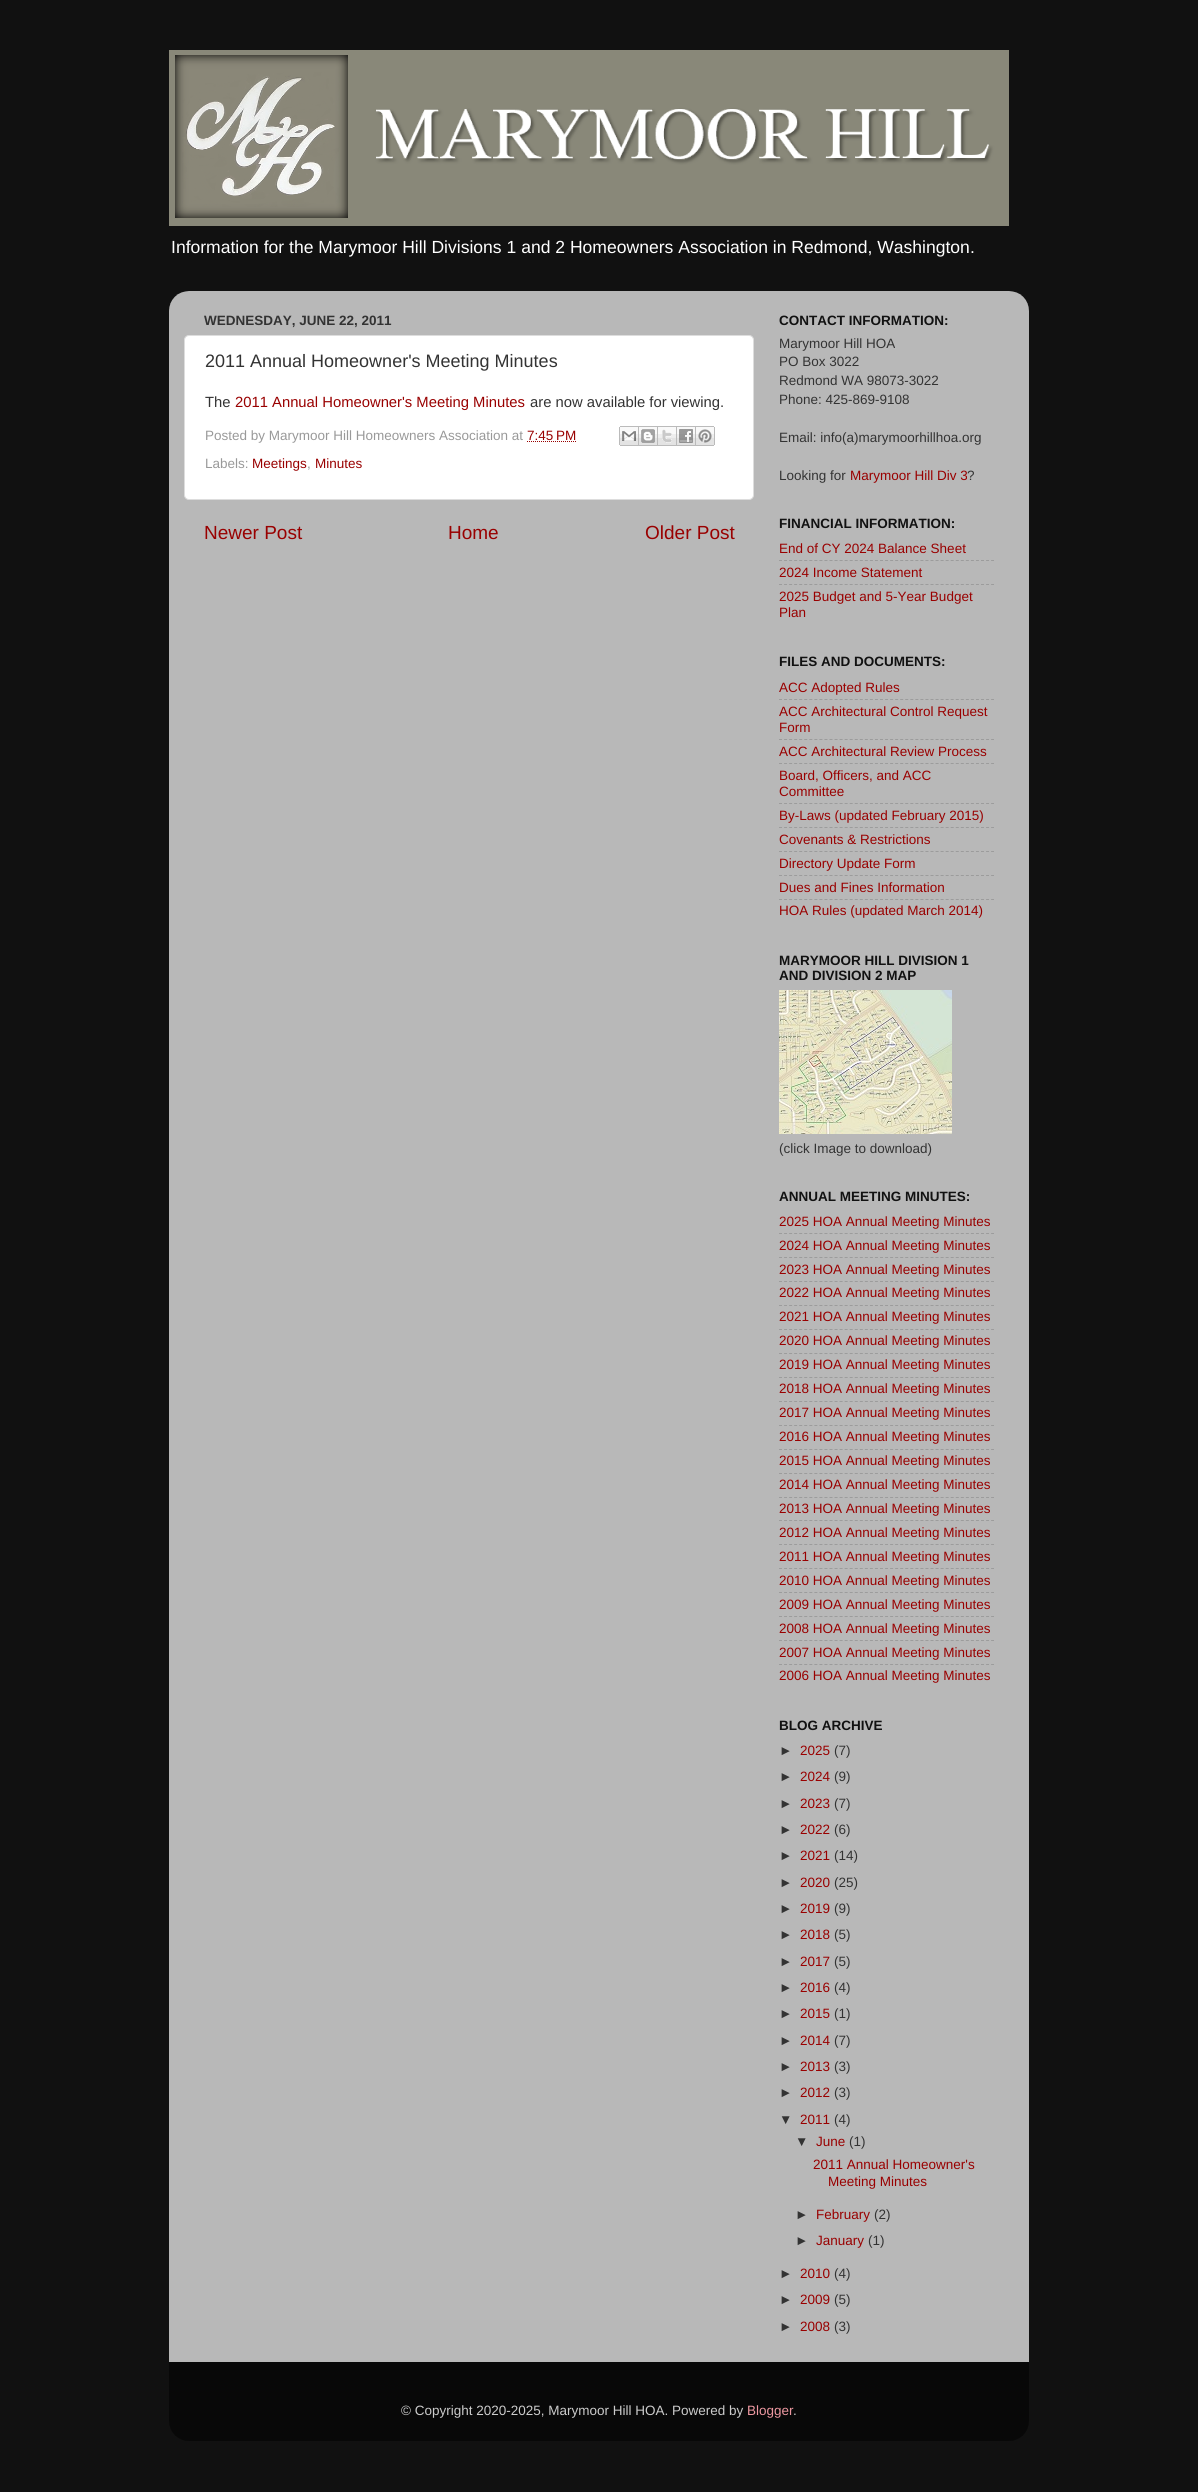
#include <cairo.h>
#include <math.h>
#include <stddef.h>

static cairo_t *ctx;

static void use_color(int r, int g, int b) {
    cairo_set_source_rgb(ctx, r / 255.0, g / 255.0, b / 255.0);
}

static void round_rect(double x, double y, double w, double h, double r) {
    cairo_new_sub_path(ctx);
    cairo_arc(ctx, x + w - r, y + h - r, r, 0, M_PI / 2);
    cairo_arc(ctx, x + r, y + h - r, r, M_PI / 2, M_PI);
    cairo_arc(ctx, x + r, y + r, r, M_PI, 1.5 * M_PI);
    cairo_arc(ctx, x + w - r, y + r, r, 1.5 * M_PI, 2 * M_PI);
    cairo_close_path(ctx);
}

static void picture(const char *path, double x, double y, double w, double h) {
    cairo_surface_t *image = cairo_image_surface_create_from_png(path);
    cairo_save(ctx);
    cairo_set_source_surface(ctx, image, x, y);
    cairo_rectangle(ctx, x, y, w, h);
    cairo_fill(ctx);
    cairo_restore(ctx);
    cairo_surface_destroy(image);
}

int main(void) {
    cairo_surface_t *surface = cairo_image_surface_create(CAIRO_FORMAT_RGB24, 1198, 2492);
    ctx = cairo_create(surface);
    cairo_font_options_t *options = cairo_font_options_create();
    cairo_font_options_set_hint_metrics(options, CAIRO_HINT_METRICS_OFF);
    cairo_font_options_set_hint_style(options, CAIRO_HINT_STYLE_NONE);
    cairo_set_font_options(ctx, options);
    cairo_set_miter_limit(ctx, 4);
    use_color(17, 17, 17);
    cairo_paint(ctx);
    picture("img1.png", 169, 50, 840, 176);
    cairo_select_font_face(ctx, "Liberation Sans", CAIRO_FONT_SLANT_NORMAL, CAIRO_FONT_WEIGHT_NORMAL);
    cairo_set_font_size(ctx, 17.55);
    use_color(255, 255, 255);
    cairo_move_to(ctx, 171, 253);
    cairo_show_text(ctx, "Information for the Marymoor Hill Divisions 1 and 2 Homeowners Association in Redmond, Washington.");
    picture("img2.png", 169, 291, 860, 2071);
    cairo_select_font_face(ctx, "Liberation Sans", CAIRO_FONT_SLANT_NORMAL, CAIRO_FONT_WEIGHT_BOLD);
    cairo_set_font_size(ctx, 13.5);
    use_color(51, 51, 51);
    cairo_move_to(ctx, 204, 325);
    cairo_show_text(ctx, "WEDNESDAY, JUNE 22, 2011");
    use_color(255, 255, 255);
    round_rect(184.5, 335.5, 569, 164, 4.5);
    cairo_fill_preserve(ctx);
    use_color(221, 221, 221);
    cairo_set_line_width(ctx, 1);
    cairo_stroke(ctx);
    cairo_select_font_face(ctx, "Liberation Sans", CAIRO_FONT_SLANT_NORMAL, CAIRO_FONT_WEIGHT_NORMAL);
    cairo_set_font_size(ctx, 18);
    use_color(51, 51, 51);
    cairo_move_to(ctx, 205, 367);
    cairo_show_text(ctx, "2011 Annual Homeowner's Meeting Minutes");
    cairo_set_font_size(ctx, 14.8);
    cairo_move_to(ctx, 205, 407);
    cairo_show_text(ctx, "The");
    use_color(153, 0, 0);
    cairo_move_to(ctx, 235, 407);
    cairo_show_text(ctx, "2011 Annual Homeowner's Meeting Minutes");
    use_color(51, 51, 51);
    cairo_move_to(ctx, 530, 407);
    cairo_show_text(ctx, "are now available for viewing.");
    cairo_set_font_size(ctx, 13.5);
    use_color(153, 153, 153);
    cairo_move_to(ctx, 205, 440);
    cairo_show_text(ctx, "Posted by Marymoor Hill Homeowners Association at");
    use_color(153, 0, 0);
    cairo_move_to(ctx, 527, 440);
    cairo_show_text(ctx, "7:45 PM");
    cairo_new_path(ctx);
    cairo_move_to(ctx, 527, 441.5);
    cairo_line_to(ctx, 576, 441.5);
    cairo_set_dash(ctx, (double[]){1, 1}, 2, 0);
    cairo_stroke(ctx);
    picture("img3.png", 619, 426, 20, 20);
    picture("img4.png", 639, 426, 19, 20);
    picture("img5.png", 658, 426, 19, 20);
    picture("img6.png", 677, 426, 19, 20);
    picture("img7.png", 696, 426, 19, 20);
    use_color(153, 153, 153);
    cairo_move_to(ctx, 205, 468);
    cairo_show_text(ctx, "Labels:");
    use_color(153, 0, 0);
    cairo_move_to(ctx, 252, 468);
    cairo_show_text(ctx, "Meetings");
    use_color(153, 153, 153);
    cairo_move_to(ctx, 307, 468);
    cairo_show_text(ctx, ",");
    use_color(153, 0, 0);
    cairo_move_to(ctx, 315, 468);
    cairo_show_text(ctx, "Minutes");
    cairo_set_font_size(ctx, 19);
    cairo_move_to(ctx, 204, 539);
    cairo_show_text(ctx, "Newer Post");
    cairo_move_to(ctx, 448, 539);
    cairo_show_text(ctx, "Home");
    cairo_move_to(ctx, 645, 539);
    cairo_show_text(ctx, "Older Post");
    cairo_select_font_face(ctx, "Liberation Sans", CAIRO_FONT_SLANT_NORMAL, CAIRO_FONT_WEIGHT_BOLD);
    cairo_set_font_size(ctx, 13.5);
    use_color(17, 17, 17);
    cairo_move_to(ctx, 779, 325);
    cairo_show_text(ctx, "CONTACT INFORMATION:");
    cairo_select_font_face(ctx, "Liberation Sans", CAIRO_FONT_SLANT_NORMAL, CAIRO_FONT_WEIGHT_NORMAL);
    use_color(51, 51, 51);
    cairo_move_to(ctx, 779, 348);
    cairo_show_text(ctx, "Marymoor Hill HOA");
    cairo_move_to(ctx, 779, 366);
    cairo_show_text(ctx, "PO Box 3022");
    cairo_move_to(ctx, 779, 385);
    cairo_show_text(ctx, "Redmond WA 98073-3022");
    cairo_move_to(ctx, 779, 404);
    cairo_show_text(ctx, "Phone: 425-869-9108");
    cairo_move_to(ctx, 779, 442);
    cairo_show_text(ctx, "Email: info(a)marymoorhillhoa.org");
    cairo_move_to(ctx, 779, 480);
    cairo_show_text(ctx, "Looking for");
    use_color(153, 0, 0);
    cairo_move_to(ctx, 850, 480);
    cairo_show_text(ctx, "Marymoor Hill Div 3");
    use_color(51, 51, 51);
    cairo_move_to(ctx, 967, 480);
    cairo_show_text(ctx, "?");
    cairo_select_font_face(ctx, "Liberation Sans", CAIRO_FONT_SLANT_NORMAL, CAIRO_FONT_WEIGHT_BOLD);
    use_color(17, 17, 17);
    cairo_move_to(ctx, 779, 528);
    cairo_show_text(ctx, "FINANCIAL INFORMATION:");
    cairo_select_font_face(ctx, "Liberation Sans", CAIRO_FONT_SLANT_NORMAL, CAIRO_FONT_WEIGHT_NORMAL);
    use_color(153, 0, 0);
    cairo_move_to(ctx, 779, 553);
    cairo_show_text(ctx, "End of CY 2024 Balance Sheet");
    cairo_new_path(ctx);
    cairo_move_to(ctx, 779, 560.5);
    cairo_line_to(ctx, 994, 560.5);
    use_color(156, 156, 156);
    cairo_set_dash(ctx, (double[]){3, 2.05}, 2, 0);
    cairo_stroke(ctx);
    use_color(153, 0, 0);
    cairo_move_to(ctx, 779, 577);
    cairo_show_text(ctx, "2024 Income Statement");
    cairo_new_path(ctx);
    cairo_move_to(ctx, 779, 584.5);
    cairo_line_to(ctx, 994, 584.5);
    use_color(156, 156, 156);
    cairo_stroke(ctx);
    use_color(153, 0, 0);
    cairo_move_to(ctx, 779, 601);
    cairo_show_text(ctx, "2025 Budget and 5-Year Budget");
    cairo_move_to(ctx, 779, 617);
    cairo_show_text(ctx, "Plan");
    cairo_select_font_face(ctx, "Liberation Sans", CAIRO_FONT_SLANT_NORMAL, CAIRO_FONT_WEIGHT_BOLD);
    use_color(17, 17, 17);
    cairo_move_to(ctx, 779, 666);
    cairo_show_text(ctx, "FILES AND DOCUMENTS:");
    cairo_select_font_face(ctx, "Liberation Sans", CAIRO_FONT_SLANT_NORMAL, CAIRO_FONT_WEIGHT_NORMAL);
    use_color(153, 0, 0);
    cairo_move_to(ctx, 779, 692);
    cairo_show_text(ctx, "ACC Adopted Rules");
    cairo_new_path(ctx);
    cairo_move_to(ctx, 779, 699.5);
    cairo_line_to(ctx, 994, 699.5);
    use_color(156, 156, 156);
    cairo_stroke(ctx);
    use_color(153, 0, 0);
    cairo_move_to(ctx, 779, 716);
    cairo_show_text(ctx, "ACC Architectural Control Request");
    cairo_move_to(ctx, 779, 732);
    cairo_show_text(ctx, "Form");
    cairo_new_path(ctx);
    cairo_move_to(ctx, 779, 739.5);
    cairo_line_to(ctx, 994, 739.5);
    use_color(156, 156, 156);
    cairo_stroke(ctx);
    use_color(153, 0, 0);
    cairo_move_to(ctx, 779, 756);
    cairo_show_text(ctx, "ACC Architectural Review Process");
    cairo_new_path(ctx);
    cairo_move_to(ctx, 779, 763.5);
    cairo_line_to(ctx, 994, 763.5);
    use_color(156, 156, 156);
    cairo_stroke(ctx);
    use_color(153, 0, 0);
    cairo_move_to(ctx, 779, 780);
    cairo_show_text(ctx, "Board, Officers, and ACC");
    cairo_move_to(ctx, 779, 796);
    cairo_show_text(ctx, "Committee");
    cairo_new_path(ctx);
    cairo_move_to(ctx, 779, 803.5);
    cairo_line_to(ctx, 994, 803.5);
    use_color(156, 156, 156);
    cairo_stroke(ctx);
    use_color(153, 0, 0);
    cairo_move_to(ctx, 779, 820);
    cairo_show_text(ctx, "By-Laws (updated February 2015)");
    cairo_new_path(ctx);
    cairo_move_to(ctx, 779, 827.5);
    cairo_line_to(ctx, 994, 827.5);
    use_color(156, 156, 156);
    cairo_stroke(ctx);
    use_color(153, 0, 0);
    cairo_move_to(ctx, 779, 844);
    cairo_show_text(ctx, "Covenants & Restrictions");
    cairo_new_path(ctx);
    cairo_move_to(ctx, 779, 851.5);
    cairo_line_to(ctx, 994, 851.5);
    use_color(156, 156, 156);
    cairo_stroke(ctx);
    use_color(153, 0, 0);
    cairo_move_to(ctx, 779, 868);
    cairo_show_text(ctx, "Directory Update Form");
    cairo_new_path(ctx);
    cairo_move_to(ctx, 779, 875.5);
    cairo_line_to(ctx, 994, 875.5);
    use_color(156, 156, 156);
    cairo_stroke(ctx);
    use_color(153, 0, 0);
    cairo_move_to(ctx, 779, 892);
    cairo_show_text(ctx, "Dues and Fines Information");
    cairo_new_path(ctx);
    cairo_move_to(ctx, 779, 899.5);
    cairo_line_to(ctx, 994, 899.5);
    use_color(156, 156, 156);
    cairo_stroke(ctx);
    use_color(153, 0, 0);
    cairo_move_to(ctx, 779, 915);
    cairo_show_text(ctx, "HOA Rules (updated March 2014)");
    cairo_select_font_face(ctx, "Liberation Sans", CAIRO_FONT_SLANT_NORMAL, CAIRO_FONT_WEIGHT_BOLD);
    use_color(17, 17, 17);
    cairo_move_to(ctx, 779, 965);
    cairo_show_text(ctx, "MARYMOOR HILL DIVISION 1");
    cairo_move_to(ctx, 779, 980);
    cairo_show_text(ctx, "AND DIVISION 2 MAP");
    picture("img8.png", 779, 990, 173, 144);
    cairo_select_font_face(ctx, "Liberation Sans", CAIRO_FONT_SLANT_NORMAL, CAIRO_FONT_WEIGHT_NORMAL);
    use_color(51, 51, 51);
    cairo_move_to(ctx, 779, 1153);
    cairo_show_text(ctx, "(click Image to download)");
    cairo_select_font_face(ctx, "Liberation Sans", CAIRO_FONT_SLANT_NORMAL, CAIRO_FONT_WEIGHT_BOLD);
    use_color(17, 17, 17);
    cairo_move_to(ctx, 779, 1201);
    cairo_show_text(ctx, "ANNUAL MEETING MINUTES:");
    cairo_select_font_face(ctx, "Liberation Sans", CAIRO_FONT_SLANT_NORMAL, CAIRO_FONT_WEIGHT_NORMAL);
    use_color(153, 0, 0);
    cairo_move_to(ctx, 779, 1226);
    cairo_show_text(ctx, "2025 HOA Annual Meeting Minutes");
    cairo_new_path(ctx);
    cairo_move_to(ctx, 779, 1233.5);
    cairo_line_to(ctx, 994, 1233.5);
    use_color(156, 156, 156);
    cairo_stroke(ctx);
    use_color(153, 0, 0);
    cairo_move_to(ctx, 779, 1250);
    cairo_show_text(ctx, "2024 HOA Annual Meeting Minutes");
    cairo_new_path(ctx);
    cairo_move_to(ctx, 779, 1257.5);
    cairo_line_to(ctx, 994, 1257.5);
    use_color(156, 156, 156);
    cairo_stroke(ctx);
    use_color(153, 0, 0);
    cairo_move_to(ctx, 779, 1274);
    cairo_show_text(ctx, "2023 HOA Annual Meeting Minutes");
    cairo_new_path(ctx);
    cairo_move_to(ctx, 779, 1281.5);
    cairo_line_to(ctx, 994, 1281.5);
    use_color(156, 156, 156);
    cairo_stroke(ctx);
    use_color(153, 0, 0);
    cairo_move_to(ctx, 779, 1297);
    cairo_show_text(ctx, "2022 HOA Annual Meeting Minutes");
    cairo_new_path(ctx);
    cairo_move_to(ctx, 779, 1305.5);
    cairo_line_to(ctx, 994, 1305.5);
    use_color(156, 156, 156);
    cairo_stroke(ctx);
    use_color(153, 0, 0);
    cairo_move_to(ctx, 779, 1321);
    cairo_show_text(ctx, "2021 HOA Annual Meeting Minutes");
    cairo_new_path(ctx);
    cairo_move_to(ctx, 779, 1329.5);
    cairo_line_to(ctx, 994, 1329.5);
    use_color(156, 156, 156);
    cairo_stroke(ctx);
    use_color(153, 0, 0);
    cairo_move_to(ctx, 779, 1345);
    cairo_show_text(ctx, "2020 HOA Annual Meeting Minutes");
    cairo_new_path(ctx);
    cairo_move_to(ctx, 779, 1353.5);
    cairo_line_to(ctx, 994, 1353.5);
    use_color(156, 156, 156);
    cairo_stroke(ctx);
    use_color(153, 0, 0);
    cairo_move_to(ctx, 779, 1369);
    cairo_show_text(ctx, "2019 HOA Annual Meeting Minutes");
    cairo_new_path(ctx);
    cairo_move_to(ctx, 779, 1377.5);
    cairo_line_to(ctx, 994, 1377.5);
    use_color(156, 156, 156);
    cairo_stroke(ctx);
    use_color(153, 0, 0);
    cairo_move_to(ctx, 779, 1393);
    cairo_show_text(ctx, "2018 HOA Annual Meeting Minutes");
    cairo_new_path(ctx);
    cairo_move_to(ctx, 779, 1401.5);
    cairo_line_to(ctx, 994, 1401.5);
    use_color(156, 156, 156);
    cairo_stroke(ctx);
    use_color(153, 0, 0);
    cairo_move_to(ctx, 779, 1417);
    cairo_show_text(ctx, "2017 HOA Annual Meeting Minutes");
    cairo_new_path(ctx);
    cairo_move_to(ctx, 779, 1425.5);
    cairo_line_to(ctx, 994, 1425.5);
    use_color(156, 156, 156);
    cairo_stroke(ctx);
    use_color(153, 0, 0);
    cairo_move_to(ctx, 779, 1441);
    cairo_show_text(ctx, "2016 HOA Annual Meeting Minutes");
    cairo_new_path(ctx);
    cairo_move_to(ctx, 779, 1449.5);
    cairo_line_to(ctx, 994, 1449.5);
    use_color(156, 156, 156);
    cairo_stroke(ctx);
    use_color(153, 0, 0);
    cairo_move_to(ctx, 779, 1465);
    cairo_show_text(ctx, "2015 HOA Annual Meeting Minutes");
    cairo_new_path(ctx);
    cairo_move_to(ctx, 779, 1473.5);
    cairo_line_to(ctx, 994, 1473.5);
    use_color(156, 156, 156);
    cairo_stroke(ctx);
    use_color(153, 0, 0);
    cairo_move_to(ctx, 779, 1489);
    cairo_show_text(ctx, "2014 HOA Annual Meeting Minutes");
    cairo_new_path(ctx);
    cairo_move_to(ctx, 779, 1497.5);
    cairo_line_to(ctx, 994, 1497.5);
    use_color(156, 156, 156);
    cairo_stroke(ctx);
    use_color(153, 0, 0);
    cairo_move_to(ctx, 779, 1513);
    cairo_show_text(ctx, "2013 HOA Annual Meeting Minutes");
    cairo_new_path(ctx);
    cairo_move_to(ctx, 779, 1520.5);
    cairo_line_to(ctx, 994, 1520.5);
    use_color(156, 156, 156);
    cairo_stroke(ctx);
    use_color(153, 0, 0);
    cairo_move_to(ctx, 779, 1537);
    cairo_show_text(ctx, "2012 HOA Annual Meeting Minutes");
    cairo_new_path(ctx);
    cairo_move_to(ctx, 779, 1544.5);
    cairo_line_to(ctx, 994, 1544.5);
    use_color(156, 156, 156);
    cairo_stroke(ctx);
    use_color(153, 0, 0);
    cairo_move_to(ctx, 779, 1561);
    cairo_show_text(ctx, "2011 HOA Annual Meeting Minutes");
    cairo_new_path(ctx);
    cairo_move_to(ctx, 779, 1568.5);
    cairo_line_to(ctx, 994, 1568.5);
    use_color(156, 156, 156);
    cairo_stroke(ctx);
    use_color(153, 0, 0);
    cairo_move_to(ctx, 779, 1585);
    cairo_show_text(ctx, "2010 HOA Annual Meeting Minutes");
    cairo_new_path(ctx);
    cairo_move_to(ctx, 779, 1592.5);
    cairo_line_to(ctx, 994, 1592.5);
    use_color(156, 156, 156);
    cairo_stroke(ctx);
    use_color(153, 0, 0);
    cairo_move_to(ctx, 779, 1609);
    cairo_show_text(ctx, "2009 HOA Annual Meeting Minutes");
    cairo_new_path(ctx);
    cairo_move_to(ctx, 779, 1616.5);
    cairo_line_to(ctx, 994, 1616.5);
    use_color(156, 156, 156);
    cairo_stroke(ctx);
    use_color(153, 0, 0);
    cairo_move_to(ctx, 779, 1633);
    cairo_show_text(ctx, "2008 HOA Annual Meeting Minutes");
    cairo_new_path(ctx);
    cairo_move_to(ctx, 779, 1640.5);
    cairo_line_to(ctx, 994, 1640.5);
    use_color(156, 156, 156);
    cairo_stroke(ctx);
    use_color(153, 0, 0);
    cairo_move_to(ctx, 779, 1657);
    cairo_show_text(ctx, "2007 HOA Annual Meeting Minutes");
    cairo_new_path(ctx);
    cairo_move_to(ctx, 779, 1664.5);
    cairo_line_to(ctx, 994, 1664.5);
    use_color(156, 156, 156);
    cairo_stroke(ctx);
    use_color(153, 0, 0);
    cairo_move_to(ctx, 779, 1680);
    cairo_show_text(ctx, "2006 HOA Annual Meeting Minutes");
    cairo_select_font_face(ctx, "Liberation Sans", CAIRO_FONT_SLANT_NORMAL, CAIRO_FONT_WEIGHT_BOLD);
    use_color(17, 17, 17);
    cairo_move_to(ctx, 779, 1730);
    cairo_show_text(ctx, "BLOG ARCHIVE");
    cairo_select_font_face(ctx, "Liberation Sans", CAIRO_FONT_SLANT_NORMAL, CAIRO_FONT_WEIGHT_NORMAL);
    use_color(51, 51, 51);
    cairo_move_to(ctx, 779, 1755);
    cairo_show_text(ctx, "►");
    use_color(153, 0, 0);
    cairo_move_to(ctx, 800, 1755);
    cairo_show_text(ctx, "2025");
    use_color(51, 51, 51);
    cairo_move_to(ctx, 834, 1755);
    cairo_show_text(ctx, "(7)");
    cairo_move_to(ctx, 779, 1781);
    cairo_show_text(ctx, "►");
    use_color(153, 0, 0);
    cairo_move_to(ctx, 800, 1781);
    cairo_show_text(ctx, "2024");
    use_color(51, 51, 51);
    cairo_move_to(ctx, 834, 1781);
    cairo_show_text(ctx, "(9)");
    cairo_move_to(ctx, 779, 1808);
    cairo_show_text(ctx, "►");
    use_color(153, 0, 0);
    cairo_move_to(ctx, 800, 1808);
    cairo_show_text(ctx, "2023");
    use_color(51, 51, 51);
    cairo_move_to(ctx, 834, 1808);
    cairo_show_text(ctx, "(7)");
    cairo_move_to(ctx, 779, 1834);
    cairo_show_text(ctx, "►");
    use_color(153, 0, 0);
    cairo_move_to(ctx, 800, 1834);
    cairo_show_text(ctx, "2022");
    use_color(51, 51, 51);
    cairo_move_to(ctx, 834, 1834);
    cairo_show_text(ctx, "(6)");
    cairo_move_to(ctx, 779, 1860);
    cairo_show_text(ctx, "►");
    use_color(153, 0, 0);
    cairo_move_to(ctx, 800, 1860);
    cairo_show_text(ctx, "2021");
    use_color(51, 51, 51);
    cairo_move_to(ctx, 834, 1860);
    cairo_show_text(ctx, "(14)");
    cairo_move_to(ctx, 779, 1887);
    cairo_show_text(ctx, "►");
    use_color(153, 0, 0);
    cairo_move_to(ctx, 800, 1887);
    cairo_show_text(ctx, "2020");
    use_color(51, 51, 51);
    cairo_move_to(ctx, 834, 1887);
    cairo_show_text(ctx, "(25)");
    cairo_move_to(ctx, 779, 1913);
    cairo_show_text(ctx, "►");
    use_color(153, 0, 0);
    cairo_move_to(ctx, 800, 1913);
    cairo_show_text(ctx, "2019");
    use_color(51, 51, 51);
    cairo_move_to(ctx, 834, 1913);
    cairo_show_text(ctx, "(9)");
    cairo_move_to(ctx, 779, 1939);
    cairo_show_text(ctx, "►");
    use_color(153, 0, 0);
    cairo_move_to(ctx, 800, 1939);
    cairo_show_text(ctx, "2018");
    use_color(51, 51, 51);
    cairo_move_to(ctx, 834, 1939);
    cairo_show_text(ctx, "(5)");
    cairo_move_to(ctx, 779, 1966);
    cairo_show_text(ctx, "►");
    use_color(153, 0, 0);
    cairo_move_to(ctx, 800, 1966);
    cairo_show_text(ctx, "2017");
    use_color(51, 51, 51);
    cairo_move_to(ctx, 834, 1966);
    cairo_show_text(ctx, "(5)");
    cairo_move_to(ctx, 779, 1992);
    cairo_show_text(ctx, "►");
    use_color(153, 0, 0);
    cairo_move_to(ctx, 800, 1992);
    cairo_show_text(ctx, "2016");
    use_color(51, 51, 51);
    cairo_move_to(ctx, 834, 1992);
    cairo_show_text(ctx, "(4)");
    cairo_move_to(ctx, 779, 2018);
    cairo_show_text(ctx, "►");
    use_color(153, 0, 0);
    cairo_move_to(ctx, 800, 2018);
    cairo_show_text(ctx, "2015");
    use_color(51, 51, 51);
    cairo_move_to(ctx, 834, 2018);
    cairo_show_text(ctx, "(1)");
    cairo_move_to(ctx, 779, 2045);
    cairo_show_text(ctx, "►");
    use_color(153, 0, 0);
    cairo_move_to(ctx, 800, 2045);
    cairo_show_text(ctx, "2014");
    use_color(51, 51, 51);
    cairo_move_to(ctx, 834, 2045);
    cairo_show_text(ctx, "(7)");
    cairo_move_to(ctx, 779, 2071);
    cairo_show_text(ctx, "►");
    use_color(153, 0, 0);
    cairo_move_to(ctx, 800, 2071);
    cairo_show_text(ctx, "2013");
    use_color(51, 51, 51);
    cairo_move_to(ctx, 834, 2071);
    cairo_show_text(ctx, "(3)");
    cairo_move_to(ctx, 779, 2097);
    cairo_show_text(ctx, "►");
    use_color(153, 0, 0);
    cairo_move_to(ctx, 800, 2097);
    cairo_show_text(ctx, "2012");
    use_color(51, 51, 51);
    cairo_move_to(ctx, 834, 2097);
    cairo_show_text(ctx, "(3)");
    cairo_move_to(ctx, 779, 2124);
    cairo_show_text(ctx, "▼");
    use_color(153, 0, 0);
    cairo_move_to(ctx, 800, 2124);
    cairo_show_text(ctx, "2011");
    use_color(51, 51, 51);
    cairo_move_to(ctx, 834, 2124);
    cairo_show_text(ctx, "(4)");
    cairo_move_to(ctx, 795, 2146);
    cairo_show_text(ctx, "▼");
    use_color(153, 0, 0);
    cairo_move_to(ctx, 816, 2146);
    cairo_show_text(ctx, "June");
    use_color(51, 51, 51);
    cairo_move_to(ctx, 849, 2146);
    cairo_show_text(ctx, "(1)");
    use_color(153, 0, 0);
    cairo_move_to(ctx, 813, 2169);
    cairo_show_text(ctx, "2011 Annual Homeowner's");
    cairo_move_to(ctx, 828, 2186);
    cairo_show_text(ctx, "Meeting Minutes");
    use_color(51, 51, 51);
    cairo_move_to(ctx, 795, 2219);
    cairo_show_text(ctx, "►");
    use_color(153, 0, 0);
    cairo_move_to(ctx, 816, 2219);
    cairo_show_text(ctx, "February");
    use_color(51, 51, 51);
    cairo_move_to(ctx, 874, 2219);
    cairo_show_text(ctx, "(2)");
    cairo_move_to(ctx, 795, 2245);
    cairo_show_text(ctx, "►");
    use_color(153, 0, 0);
    cairo_move_to(ctx, 816, 2245);
    cairo_show_text(ctx, "January");
    use_color(51, 51, 51);
    cairo_move_to(ctx, 868, 2245);
    cairo_show_text(ctx, "(1)");
    cairo_move_to(ctx, 779, 2278);
    cairo_show_text(ctx, "►");
    use_color(153, 0, 0);
    cairo_move_to(ctx, 800, 2278);
    cairo_show_text(ctx, "2010");
    use_color(51, 51, 51);
    cairo_move_to(ctx, 834, 2278);
    cairo_show_text(ctx, "(4)");
    cairo_move_to(ctx, 779, 2304);
    cairo_show_text(ctx, "►");
    use_color(153, 0, 0);
    cairo_move_to(ctx, 800, 2304);
    cairo_show_text(ctx, "2009");
    use_color(51, 51, 51);
    cairo_move_to(ctx, 834, 2304);
    cairo_show_text(ctx, "(5)");
    cairo_move_to(ctx, 779, 2331);
    cairo_show_text(ctx, "►");
    use_color(153, 0, 0);
    cairo_move_to(ctx, 800, 2331);
    cairo_show_text(ctx, "2008");
    use_color(51, 51, 51);
    cairo_move_to(ctx, 834, 2331);
    cairo_show_text(ctx, "(3)");
    picture("img9.png", 169, 2362, 860, 79);
    use_color(204, 204, 204);
    cairo_move_to(ctx, 401, 2415);
    cairo_show_text(ctx, "© Copyright 2020-2025, Marymoor Hill HOA. Powered by");
    use_color(238, 152, 161);
    cairo_move_to(ctx, 747, 2415);
    cairo_show_text(ctx, "Blogger");
    use_color(204, 204, 204);
    cairo_move_to(ctx, 793, 2415);
    cairo_show_text(ctx, ".");
    cairo_surface_write_to_png(surface, "result.png");
    cairo_font_options_destroy(options);
    cairo_destroy(ctx);
    cairo_surface_destroy(surface);
    return 0;
}
